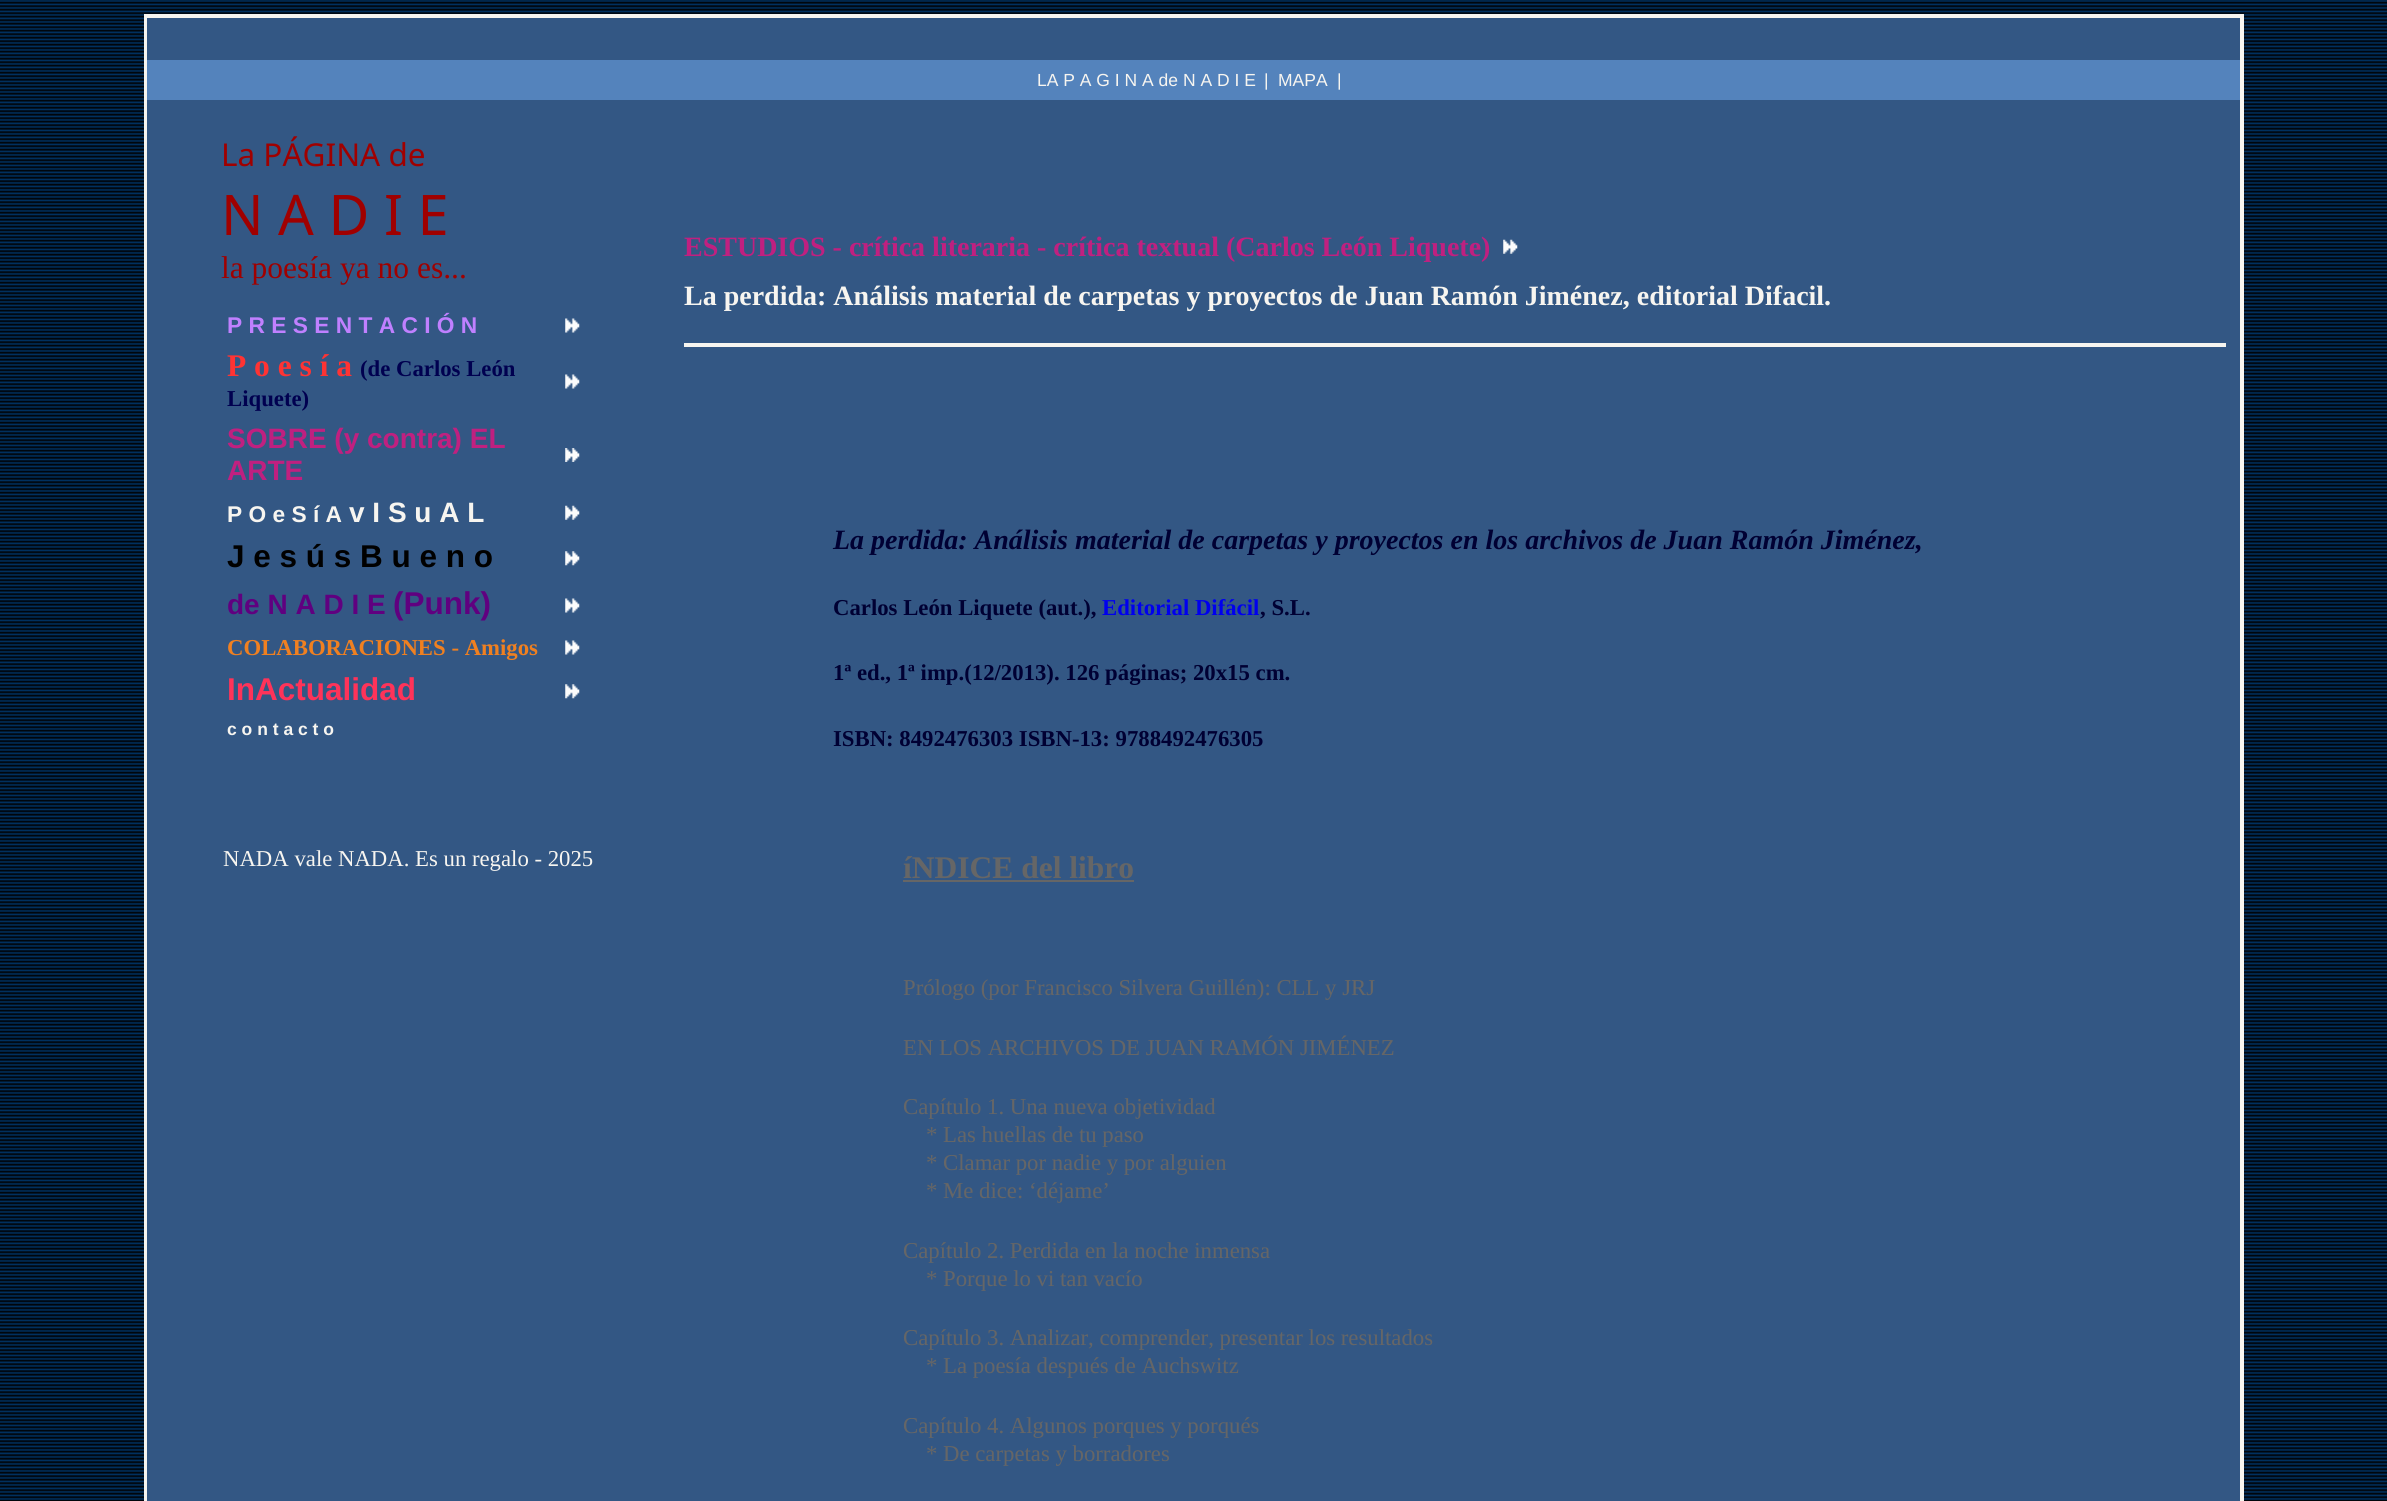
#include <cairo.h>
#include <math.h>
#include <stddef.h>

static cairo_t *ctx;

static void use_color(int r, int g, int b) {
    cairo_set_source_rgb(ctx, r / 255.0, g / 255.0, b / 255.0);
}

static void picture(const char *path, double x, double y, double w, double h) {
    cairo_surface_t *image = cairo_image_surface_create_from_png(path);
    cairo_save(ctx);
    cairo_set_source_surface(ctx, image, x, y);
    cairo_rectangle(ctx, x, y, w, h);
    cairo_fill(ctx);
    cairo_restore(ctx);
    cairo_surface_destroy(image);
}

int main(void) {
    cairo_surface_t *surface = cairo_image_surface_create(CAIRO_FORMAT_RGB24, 2387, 1501);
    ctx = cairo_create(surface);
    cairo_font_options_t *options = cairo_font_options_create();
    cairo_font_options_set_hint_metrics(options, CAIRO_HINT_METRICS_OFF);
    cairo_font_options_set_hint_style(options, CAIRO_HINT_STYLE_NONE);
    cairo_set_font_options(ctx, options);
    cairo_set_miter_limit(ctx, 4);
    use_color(255, 255, 255);
    cairo_paint(ctx);
    picture("img1.png", 0, 0, 2387, 1501);
    cairo_rectangle(ctx, 145, 15, 2098, 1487);
    use_color(247, 245, 240);
    cairo_stroke(ctx);
    use_color(51, 87, 132);
    cairo_rectangle(ctx, 146, 17, 2095, 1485);
    cairo_fill_preserve(ctx);
    use_color(247, 245, 240);
    cairo_stroke(ctx);
    use_color(84, 131, 188);
    cairo_rectangle(ctx, 147, 60, 2093, 40);
    cairo_fill(ctx);
    cairo_select_font_face(ctx, "Liberation Sans", CAIRO_FONT_SLANT_NORMAL, CAIRO_FONT_WEIGHT_NORMAL);
    cairo_set_font_size(ctx, 17.5);
    use_color(247, 245, 240);
    cairo_move_to(ctx, 1037, 86);
    cairo_show_text(ctx, "LA P A G I N A de N A D I E");
    cairo_move_to(ctx, 1264, 86);
    cairo_show_text(ctx, "|");
    cairo_move_to(ctx, 1278, 86);
    cairo_show_text(ctx, "MAPA");
    cairo_move_to(ctx, 1337, 86);
    cairo_show_text(ctx, "|");
    cairo_select_font_face(ctx, "Noto Sans", CAIRO_FONT_SLANT_NORMAL, CAIRO_FONT_WEIGHT_NORMAL);
    cairo_set_font_size(ctx, 31.5);
    use_color(160, 0, 0);
    cairo_move_to(ctx, 221, 166);
    cairo_show_text(ctx, "La PÁGINA de");
    cairo_set_font_size(ctx, 56);
    cairo_move_to(ctx, 221, 235);
    cairo_show_text(ctx, "N A D I E");
    cairo_select_font_face(ctx, "Liberation Serif", CAIRO_FONT_SLANT_NORMAL, CAIRO_FONT_WEIGHT_NORMAL);
    cairo_set_font_size(ctx, 31.5);
    cairo_move_to(ctx, 221, 278);
    cairo_show_text(ctx, "la poesía ya no es...");
    cairo_select_font_face(ctx, "Liberation Sans", CAIRO_FONT_SLANT_NORMAL, CAIRO_FONT_WEIGHT_BOLD);
    cairo_set_font_size(ctx, 22.75);
    use_color(192, 128, 255);
    cairo_move_to(ctx, 227, 333);
    cairo_show_text(ctx, "P R E S E N T A C I Ó N");
    picture("img2.png", 565, 318, 15, 15);
    cairo_select_font_face(ctx, "Liberation Serif", CAIRO_FONT_SLANT_NORMAL, CAIRO_FONT_WEIGHT_BOLD);
    cairo_set_font_size(ctx, 31.5);
    use_color(255, 51, 51);
    cairo_move_to(ctx, 227, 376);
    cairo_show_text(ctx, "P o e s í a");
    cairo_set_font_size(ctx, 22.75);
    use_color(0, 0, 80);
    cairo_move_to(ctx, 360, 376);
    cairo_show_text(ctx, "(de Carlos León");
    cairo_move_to(ctx, 227, 406);
    cairo_show_text(ctx, "Liquete)");
    picture("img2.png", 565, 374, 15, 15);
    cairo_select_font_face(ctx, "Liberation Sans", CAIRO_FONT_SLANT_NORMAL, CAIRO_FONT_WEIGHT_BOLD);
    cairo_set_font_size(ctx, 28);
    use_color(192, 32, 128);
    cairo_move_to(ctx, 227, 448);
    cairo_show_text(ctx, "SOBRE (y contra) EL");
    cairo_move_to(ctx, 227, 480);
    cairo_show_text(ctx, "ARTE");
    picture("img3.png", 565, 448, 15, 14);
    cairo_set_font_size(ctx, 22.75);
    use_color(247, 245, 240);
    cairo_move_to(ctx, 227, 522);
    cairo_show_text(ctx, "P O e S í A");
    cairo_set_font_size(ctx, 28);
    cairo_move_to(ctx, 349, 522);
    cairo_show_text(ctx, "v I S u A L");
    picture("img4.png", 565, 505, 15, 15);
    cairo_set_font_size(ctx, 31.5);
    use_color(0, 0, 0);
    cairo_move_to(ctx, 227, 567);
    cairo_show_text(ctx, "J e s ú s B u e n o");
    picture("img5.png", 565, 551, 15, 15);
    cairo_set_font_size(ctx, 28);
    use_color(96, 0, 128);
    cairo_move_to(ctx, 227, 614);
    cairo_show_text(ctx, "de N A D I E");
    cairo_set_font_size(ctx, 31.5);
    cairo_move_to(ctx, 393, 614);
    cairo_show_text(ctx, "(Punk)");
    picture("img2.png", 565, 598, 15, 15);
    cairo_select_font_face(ctx, "Liberation Serif", CAIRO_FONT_SLANT_NORMAL, CAIRO_FONT_WEIGHT_BOLD);
    cairo_set_font_size(ctx, 22.75);
    use_color(240, 128, 32);
    cairo_move_to(ctx, 227, 655);
    cairo_show_text(ctx, "COLABORACIONES - Amigos");
    picture("img2.png", 565, 640, 15, 15);
    cairo_select_font_face(ctx, "Liberation Sans", CAIRO_FONT_SLANT_NORMAL, CAIRO_FONT_WEIGHT_BOLD);
    cairo_set_font_size(ctx, 31.5);
    use_color(255, 51, 89);
    cairo_move_to(ctx, 227, 700);
    cairo_show_text(ctx, "InActualidad");
    picture("img5.png", 565, 684, 15, 15);
    cairo_set_font_size(ctx, 17.5);
    use_color(247, 245, 240);
    cairo_move_to(ctx, 227, 735);
    cairo_show_text(ctx, "c o n t a c t o");
    cairo_select_font_face(ctx, "Liberation Serif", CAIRO_FONT_SLANT_NORMAL, CAIRO_FONT_WEIGHT_NORMAL);
    cairo_set_font_size(ctx, 22.75);
    cairo_move_to(ctx, 223, 866);
    cairo_show_text(ctx, "NADA vale NADA. Es un regalo - 2025");
    cairo_select_font_face(ctx, "Liberation Serif", CAIRO_FONT_SLANT_NORMAL, CAIRO_FONT_WEIGHT_BOLD);
    cairo_set_font_size(ctx, 28);
    use_color(192, 32, 128);
    cairo_move_to(ctx, 684, 256);
    cairo_show_text(ctx, "ESTUDIOS - crítica literaria - crítica textual (Carlos León Liquete)");
    picture("img6.png", 1503, 239, 15, 15);
    use_color(247, 245, 240);
    cairo_move_to(ctx, 684, 305);
    cairo_show_text(ctx, "La perdida: Análisis material de carpetas y proyectos de Juan Ramón Jiménez, editorial Difacil.");
    cairo_rectangle(ctx, 684, 343, 1542, 4);
    cairo_fill(ctx);
    cairo_select_font_face(ctx, "Liberation Serif", CAIRO_FONT_SLANT_ITALIC, CAIRO_FONT_WEIGHT_BOLD);
    use_color(0, 0, 51);
    cairo_move_to(ctx, 833, 549);
    cairo_show_text(ctx, "La perdida: Análisis material de carpetas y proyectos en los archivos de Juan Ramón Jiménez,");
    cairo_select_font_face(ctx, "Liberation Serif", CAIRO_FONT_SLANT_NORMAL, CAIRO_FONT_WEIGHT_BOLD);
    cairo_set_font_size(ctx, 22.75);
    cairo_move_to(ctx, 833, 615);
    cairo_show_text(ctx, "Carlos León Liquete (aut.),");
    use_color(0, 0, 238);
    cairo_move_to(ctx, 1102, 615);
    cairo_show_text(ctx, "Editorial Difácil");
    use_color(0, 0, 51);
    cairo_move_to(ctx, 1260, 615);
    cairo_show_text(ctx, ", S.L.");
    cairo_move_to(ctx, 833, 680);
    cairo_show_text(ctx, "1ª ed., 1ª imp.(12/2013). 126 páginas; 20x15 cm.");
    cairo_move_to(ctx, 833, 746);
    cairo_show_text(ctx, "ISBN: 8492476303 ISBN-13: 9788492476305");
    cairo_set_font_size(ctx, 31.5);
    use_color(102, 102, 102);
    cairo_move_to(ctx, 903, 878);
    cairo_show_text(ctx, "íNDICE del libro");
    cairo_rectangle(ctx, 903, 880, 231, 2);
    cairo_fill(ctx);
    cairo_select_font_face(ctx, "Liberation Serif", CAIRO_FONT_SLANT_NORMAL, CAIRO_FONT_WEIGHT_NORMAL);
    cairo_set_font_size(ctx, 22.75);
    cairo_move_to(ctx, 903, 995);
    cairo_show_text(ctx, "Prólogo (por Francisco Silvera Guillén): CLL y JRJ");
    cairo_move_to(ctx, 903, 1055);
    cairo_show_text(ctx, "EN LOS ARCHIVOS DE JUAN RAMÓN JIMÉNEZ");
    cairo_move_to(ctx, 903, 1114);
    cairo_show_text(ctx, "Capítulo 1. Una nueva objetividad");
    cairo_move_to(ctx, 926, 1142);
    cairo_show_text(ctx, "* Las huellas de tu paso");
    cairo_move_to(ctx, 926, 1170);
    cairo_show_text(ctx, "* Clamar por nadie y por alguien");
    cairo_move_to(ctx, 926, 1198);
    cairo_show_text(ctx, "* Me dice: ‘déjame’");
    cairo_move_to(ctx, 903, 1258);
    cairo_show_text(ctx, "Capítulo 2. Perdida en la noche inmensa");
    cairo_move_to(ctx, 926, 1286);
    cairo_show_text(ctx, "* Porque lo vi tan vacío");
    cairo_move_to(ctx, 903, 1345);
    cairo_show_text(ctx, "Capítulo 3. Analizar, comprender, presentar los resultados");
    cairo_move_to(ctx, 926, 1373);
    cairo_show_text(ctx, "* La poesía después de Auchswitz");
    cairo_move_to(ctx, 903, 1433);
    cairo_show_text(ctx, "Capítulo 4. Algunos porques y porqués");
    cairo_move_to(ctx, 926, 1461);
    cairo_show_text(ctx, "* De carpetas y borradores");
    cairo_surface_write_to_png(surface, "result.png");
    cairo_font_options_destroy(options);
    cairo_destroy(ctx);
    cairo_surface_destroy(surface);
    return 0;
}
